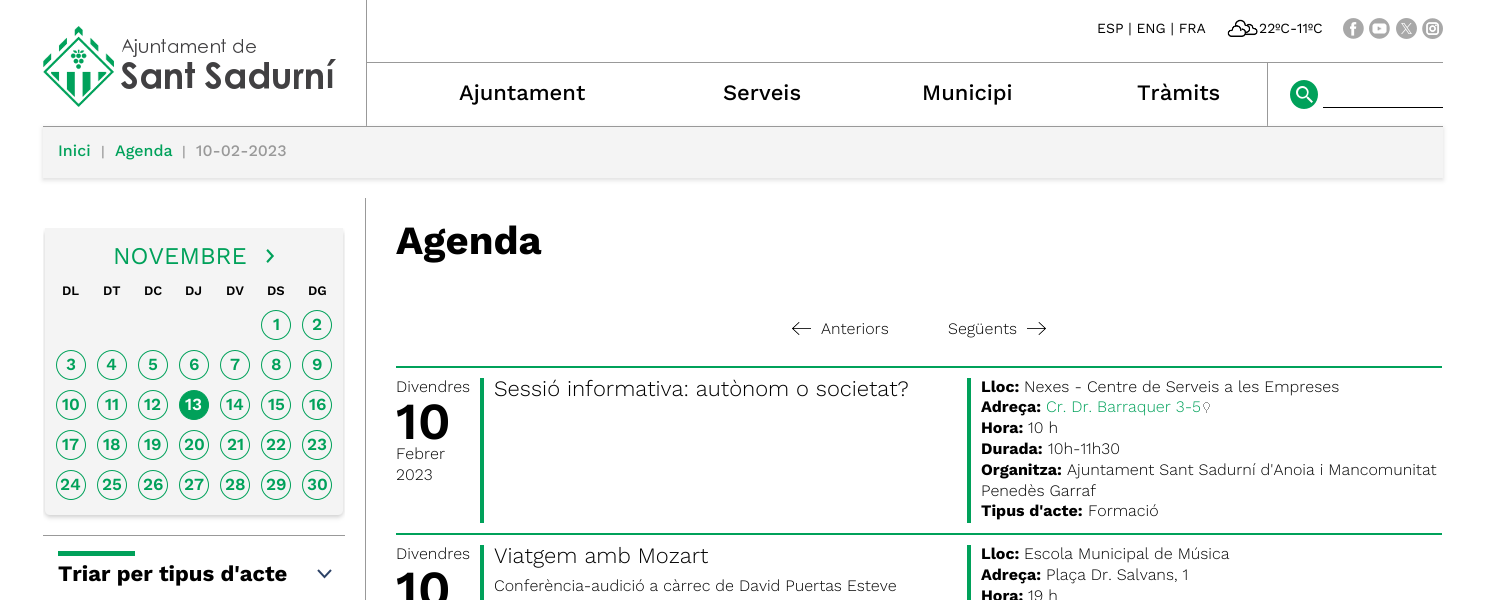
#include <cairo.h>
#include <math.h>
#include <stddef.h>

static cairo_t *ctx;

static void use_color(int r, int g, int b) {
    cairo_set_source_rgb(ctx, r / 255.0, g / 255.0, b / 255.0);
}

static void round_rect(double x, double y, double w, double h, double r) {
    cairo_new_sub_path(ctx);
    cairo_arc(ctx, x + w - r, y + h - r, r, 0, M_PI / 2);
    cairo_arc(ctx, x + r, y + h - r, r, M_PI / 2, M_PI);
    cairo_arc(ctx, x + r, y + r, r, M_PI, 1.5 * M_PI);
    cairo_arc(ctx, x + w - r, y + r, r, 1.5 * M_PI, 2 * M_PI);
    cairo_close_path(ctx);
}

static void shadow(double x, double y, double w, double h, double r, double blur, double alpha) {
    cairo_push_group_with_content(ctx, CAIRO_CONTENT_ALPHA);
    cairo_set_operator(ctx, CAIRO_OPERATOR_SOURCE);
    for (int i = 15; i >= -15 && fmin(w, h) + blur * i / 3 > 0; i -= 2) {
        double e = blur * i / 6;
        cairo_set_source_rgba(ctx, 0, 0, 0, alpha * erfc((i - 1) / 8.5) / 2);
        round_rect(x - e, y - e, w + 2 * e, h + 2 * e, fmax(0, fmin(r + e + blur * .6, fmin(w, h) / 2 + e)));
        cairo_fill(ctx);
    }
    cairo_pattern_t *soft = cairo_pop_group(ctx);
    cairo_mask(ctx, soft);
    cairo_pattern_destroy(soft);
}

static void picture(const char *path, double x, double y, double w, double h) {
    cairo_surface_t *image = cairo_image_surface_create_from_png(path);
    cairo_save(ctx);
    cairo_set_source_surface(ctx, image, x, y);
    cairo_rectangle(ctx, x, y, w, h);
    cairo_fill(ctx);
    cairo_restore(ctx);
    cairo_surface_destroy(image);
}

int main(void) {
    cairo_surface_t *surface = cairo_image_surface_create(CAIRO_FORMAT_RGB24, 1486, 600);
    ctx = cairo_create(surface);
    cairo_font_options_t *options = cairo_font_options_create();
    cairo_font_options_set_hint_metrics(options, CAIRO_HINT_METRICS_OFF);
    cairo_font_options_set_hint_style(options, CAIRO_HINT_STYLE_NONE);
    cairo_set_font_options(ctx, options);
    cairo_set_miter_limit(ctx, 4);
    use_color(255, 255, 255);
    cairo_paint(ctx);
    use_color(153, 153, 153);
    cairo_rectangle(ctx, 366, 0, 1, 126);
    cairo_fill(ctx);
    picture("img1.png", 43, 26, 293, 81);
    cairo_rectangle(ctx, 367, 62, 1076, 1);
    cairo_fill(ctx);
    cairo_select_font_face(ctx, "Work Sans", CAIRO_FONT_SLANT_NORMAL, CAIRO_FONT_WEIGHT_NORMAL);
    cairo_set_font_size(ctx, 14);
    use_color(0, 0, 0);
    cairo_move_to(ctx, 1097, 33);
    cairo_show_text(ctx, "ESP | ENG | FRA");
    picture("img2.png", 1227, 19, 31, 18);
    cairo_move_to(ctx, 1259, 33);
    cairo_show_text(ctx, "22ºC-11ºC");
    use_color(168, 168, 168);
    cairo_rectangle(ctx, 1343, 18, 21, 21);
    cairo_fill(ctx);
    picture("img3.png", 1343, 18, 21, 21);
    cairo_rectangle(ctx, 1369, 18, 21, 21);
    cairo_fill(ctx);
    picture("img4.png", 1369, 18, 21, 21);
    cairo_rectangle(ctx, 1396, 18, 21, 21);
    cairo_fill(ctx);
    picture("img5.png", 1396, 18, 21, 21);
    cairo_rectangle(ctx, 1422, 18, 21, 21);
    cairo_fill(ctx);
    picture("img6.png", 1422, 18, 21, 21);
    cairo_select_font_face(ctx, "Work Sans Medium", CAIRO_FONT_SLANT_NORMAL, CAIRO_FONT_WEIGHT_NORMAL);
    cairo_set_font_size(ctx, 22);
    use_color(0, 0, 0);
    cairo_move_to(ctx, 459, 100);
    cairo_show_text(ctx, "Ajuntament");
    cairo_move_to(ctx, 723, 100);
    cairo_show_text(ctx, "Serveis");
    cairo_move_to(ctx, 922, 100);
    cairo_show_text(ctx, "Municipi");
    cairo_move_to(ctx, 1137, 100);
    cairo_show_text(ctx, "Tràmits");
    use_color(153, 153, 153);
    cairo_rectangle(ctx, 1267, 63, 1, 63);
    cairo_fill(ctx);
    use_color(0, 161, 90);
    cairo_rectangle(ctx, 1290, 80, 28, 29);
    cairo_fill(ctx);
    picture("img7.png", 1290, 80, 28, 29);
    use_color(0, 0, 0);
    cairo_rectangle(ctx, 1323, 107, 120, 1);
    cairo_fill(ctx);
    use_color(221, 221, 221);
    shadow(43, 128, 1400, 52, 0, 2.5, 1);
    use_color(244, 244, 244);
    cairo_rectangle(ctx, 43, 127, 1400, 51);
    cairo_fill(ctx);
    use_color(153, 153, 153);
    cairo_rectangle(ctx, 43, 126, 1400, 1);
    cairo_fill(ctx);
    cairo_set_font_size(ctx, 16);
    use_color(0, 161, 90);
    cairo_move_to(ctx, 58, 156);
    cairo_show_text(ctx, "Inici");
    cairo_set_font_size(ctx, 14);
    use_color(153, 153, 153);
    cairo_move_to(ctx, 101, 156);
    cairo_show_text(ctx, "|");
    cairo_set_font_size(ctx, 16);
    use_color(0, 161, 90);
    cairo_move_to(ctx, 115, 156);
    cairo_show_text(ctx, "Agenda");
    cairo_set_font_size(ctx, 14);
    use_color(153, 153, 153);
    cairo_move_to(ctx, 182, 156);
    cairo_show_text(ctx, "|");
    cairo_set_font_size(ctx, 16);
    cairo_move_to(ctx, 196, 156);
    cairo_show_text(ctx, "10-02-2023");
    cairo_rectangle(ctx, 365, 198, 1, 402);
    cairo_fill(ctx);
    cairo_rectangle(ctx, 43, 535, 302, 1);
    cairo_fill(ctx);
    cairo_save(ctx);
    cairo_rectangle(ctx, 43, 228, 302, 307);
    cairo_clip(ctx);
    use_color(204, 204, 204);
    shadow(45, 230, 298, 287, 5, 2.5, 1);
    cairo_restore(ctx);
    use_color(244, 244, 244);
    cairo_new_path(ctx);
    cairo_move_to(ctx, 45, 228);
    cairo_line_to(ctx, 343, 228);
    cairo_line_to(ctx, 343, 510);
    cairo_curve_to(ctx, 343, 513, 341, 515, 338, 515);
    cairo_line_to(ctx, 50, 515);
    cairo_curve_to(ctx, 47, 515, 45, 513, 45, 510);
    cairo_close_path(ctx);
    cairo_fill(ctx);
    cairo_select_font_face(ctx, "Work Sans", CAIRO_FONT_SLANT_NORMAL, CAIRO_FONT_WEIGHT_NORMAL);
    cairo_set_font_size(ctx, 24);
    use_color(0, 161, 90);
    cairo_move_to(ctx, 113, 264);
    cairo_show_text(ctx, "NOVEMBRE");
    picture("img8.png", 266, 249, 8, 14);
    cairo_select_font_face(ctx, "Work Sans SemiBold", CAIRO_FONT_SLANT_NORMAL, CAIRO_FONT_WEIGHT_NORMAL);
    cairo_set_font_size(ctx, 13);
    use_color(0, 0, 0);
    cairo_move_to(ctx, 62, 295);
    cairo_show_text(ctx, "DL");
    cairo_move_to(ctx, 103, 295);
    cairo_show_text(ctx, "DT");
    cairo_move_to(ctx, 144, 295);
    cairo_show_text(ctx, "DC");
    cairo_move_to(ctx, 185, 295);
    cairo_show_text(ctx, "DJ");
    cairo_move_to(ctx, 226, 295);
    cairo_show_text(ctx, "DV");
    cairo_move_to(ctx, 267, 295);
    cairo_show_text(ctx, "DS");
    cairo_move_to(ctx, 308, 295);
    cairo_show_text(ctx, "DG");
    cairo_new_path(ctx);
    cairo_arc(ctx, 276, 325, 14.5, 0, 2 * M_PI);
    use_color(0, 161, 90);
    cairo_set_line_width(ctx, 1);
    cairo_stroke(ctx);
    cairo_set_font_size(ctx, 17);
    cairo_move_to(ctx, 273, 330);
    cairo_show_text(ctx, "1");
    cairo_new_path(ctx);
    cairo_arc(ctx, 317, 325, 14.5, 0, 2 * M_PI);
    cairo_stroke(ctx);
    cairo_move_to(ctx, 312, 330);
    cairo_show_text(ctx, "2");
    cairo_new_path(ctx);
    cairo_arc(ctx, 71, 365, 14.5, 0, 2 * M_PI);
    cairo_stroke(ctx);
    cairo_move_to(ctx, 66, 370);
    cairo_show_text(ctx, "3");
    cairo_new_path(ctx);
    cairo_arc(ctx, 112, 365, 14.5, 0, 2 * M_PI);
    cairo_stroke(ctx);
    cairo_move_to(ctx, 106, 370);
    cairo_show_text(ctx, "4");
    cairo_new_path(ctx);
    cairo_arc(ctx, 153, 365, 14.5, 0, 2 * M_PI);
    cairo_stroke(ctx);
    cairo_move_to(ctx, 148, 370);
    cairo_show_text(ctx, "5");
    cairo_new_path(ctx);
    cairo_arc(ctx, 194, 365, 14.5, 0, 2 * M_PI);
    cairo_stroke(ctx);
    cairo_move_to(ctx, 189, 370);
    cairo_show_text(ctx, "6");
    cairo_new_path(ctx);
    cairo_arc(ctx, 235, 365, 14.5, 0, 2 * M_PI);
    cairo_stroke(ctx);
    cairo_move_to(ctx, 230, 370);
    cairo_show_text(ctx, "7");
    cairo_new_path(ctx);
    cairo_arc(ctx, 276, 365, 14.5, 0, 2 * M_PI);
    cairo_stroke(ctx);
    cairo_move_to(ctx, 271, 370);
    cairo_show_text(ctx, "8");
    cairo_new_path(ctx);
    cairo_arc(ctx, 317, 365, 14.5, 0, 2 * M_PI);
    cairo_stroke(ctx);
    cairo_move_to(ctx, 312, 370);
    cairo_show_text(ctx, "9");
    cairo_new_path(ctx);
    cairo_arc(ctx, 71, 405, 14.5, 0, 2 * M_PI);
    cairo_stroke(ctx);
    cairo_move_to(ctx, 62, 410);
    cairo_show_text(ctx, "10");
    cairo_new_path(ctx);
    cairo_arc(ctx, 112, 405, 14.5, 0, 2 * M_PI);
    cairo_stroke(ctx);
    cairo_move_to(ctx, 105, 410);
    cairo_show_text(ctx, "11");
    cairo_new_path(ctx);
    cairo_arc(ctx, 153, 405, 14.5, 0, 2 * M_PI);
    cairo_stroke(ctx);
    cairo_move_to(ctx, 144, 410);
    cairo_show_text(ctx, "12");
    cairo_new_path(ctx);
    cairo_arc(ctx, 194, 405, 14.5, 0, 2 * M_PI);
    cairo_fill_preserve(ctx);
    cairo_stroke(ctx);
    use_color(255, 255, 255);
    cairo_move_to(ctx, 185, 410);
    cairo_show_text(ctx, "13");
    cairo_new_path(ctx);
    cairo_arc(ctx, 235, 405, 14.5, 0, 2 * M_PI);
    use_color(0, 161, 90);
    cairo_stroke(ctx);
    cairo_move_to(ctx, 226, 410);
    cairo_show_text(ctx, "14");
    cairo_new_path(ctx);
    cairo_arc(ctx, 276, 405, 14.5, 0, 2 * M_PI);
    cairo_stroke(ctx);
    cairo_move_to(ctx, 268, 410);
    cairo_show_text(ctx, "15");
    cairo_new_path(ctx);
    cairo_arc(ctx, 317, 405, 14.5, 0, 2 * M_PI);
    cairo_stroke(ctx);
    cairo_move_to(ctx, 309, 410);
    cairo_show_text(ctx, "16");
    cairo_new_path(ctx);
    cairo_arc(ctx, 71, 445, 14.5, 0, 2 * M_PI);
    cairo_stroke(ctx);
    cairo_move_to(ctx, 62, 450);
    cairo_show_text(ctx, "17");
    cairo_new_path(ctx);
    cairo_arc(ctx, 112, 445, 14.5, 0, 2 * M_PI);
    cairo_stroke(ctx);
    cairo_move_to(ctx, 103, 450);
    cairo_show_text(ctx, "18");
    cairo_new_path(ctx);
    cairo_arc(ctx, 153, 445, 14.5, 0, 2 * M_PI);
    cairo_stroke(ctx);
    cairo_move_to(ctx, 144, 450);
    cairo_show_text(ctx, "19");
    cairo_new_path(ctx);
    cairo_arc(ctx, 194, 445, 14.5, 0, 2 * M_PI);
    cairo_stroke(ctx);
    cairo_move_to(ctx, 184, 450);
    cairo_show_text(ctx, "20");
    cairo_new_path(ctx);
    cairo_arc(ctx, 235, 445, 14.5, 0, 2 * M_PI);
    cairo_stroke(ctx);
    cairo_move_to(ctx, 227, 450);
    cairo_show_text(ctx, "21");
    cairo_new_path(ctx);
    cairo_arc(ctx, 276, 445, 14.5, 0, 2 * M_PI);
    cairo_stroke(ctx);
    cairo_move_to(ctx, 266, 450);
    cairo_show_text(ctx, "22");
    cairo_new_path(ctx);
    cairo_arc(ctx, 317, 445, 14.5, 0, 2 * M_PI);
    cairo_stroke(ctx);
    cairo_move_to(ctx, 307, 450);
    cairo_show_text(ctx, "23");
    cairo_new_path(ctx);
    cairo_arc(ctx, 71, 485, 14.5, 0, 2 * M_PI);
    cairo_stroke(ctx);
    cairo_move_to(ctx, 60, 490);
    cairo_show_text(ctx, "24");
    cairo_new_path(ctx);
    cairo_arc(ctx, 112, 485, 14.5, 0, 2 * M_PI);
    cairo_stroke(ctx);
    cairo_move_to(ctx, 102, 490);
    cairo_show_text(ctx, "25");
    cairo_new_path(ctx);
    cairo_arc(ctx, 153, 485, 14.5, 0, 2 * M_PI);
    cairo_stroke(ctx);
    cairo_move_to(ctx, 143, 490);
    cairo_show_text(ctx, "26");
    cairo_new_path(ctx);
    cairo_arc(ctx, 194, 485, 14.5, 0, 2 * M_PI);
    cairo_stroke(ctx);
    cairo_move_to(ctx, 184, 490);
    cairo_show_text(ctx, "27");
    cairo_new_path(ctx);
    cairo_arc(ctx, 235, 485, 14.5, 0, 2 * M_PI);
    cairo_stroke(ctx);
    cairo_move_to(ctx, 225, 490);
    cairo_show_text(ctx, "28");
    cairo_new_path(ctx);
    cairo_arc(ctx, 276, 485, 14.5, 0, 2 * M_PI);
    cairo_stroke(ctx);
    cairo_move_to(ctx, 266, 490);
    cairo_show_text(ctx, "29");
    cairo_new_path(ctx);
    cairo_arc(ctx, 317, 485, 14.5, 0, 2 * M_PI);
    cairo_stroke(ctx);
    cairo_move_to(ctx, 307, 490);
    cairo_show_text(ctx, "30");
    cairo_rectangle(ctx, 58, 551, 77, 5);
    cairo_fill(ctx);
    cairo_select_font_face(ctx, "Work Sans", CAIRO_FONT_SLANT_NORMAL, CAIRO_FONT_WEIGHT_BOLD);
    cairo_set_font_size(ctx, 22);
    use_color(0, 0, 0);
    cairo_move_to(ctx, 58, 581);
    cairo_show_text(ctx, "Triar per tipus d'acte");
    picture("img9.png", 317, 569, 15, 10);
    cairo_set_font_size(ctx, 40);
    cairo_move_to(ctx, 396, 254);
    cairo_show_text(ctx, "Agenda");
    cairo_rectangle(ctx, 792, 322, 19, 13);
    cairo_fill(ctx);
    picture("img10.png", 792, 322, 19, 13);
    cairo_select_font_face(ctx, "Work Sans Light", CAIRO_FONT_SLANT_NORMAL, CAIRO_FONT_WEIGHT_NORMAL);
    cairo_set_font_size(ctx, 16);
    cairo_move_to(ctx, 821, 334);
    cairo_show_text(ctx, "Anteriors");
    cairo_move_to(ctx, 948, 334);
    cairo_show_text(ctx, "Següents");
    cairo_rectangle(ctx, 1027, 322, 19, 13);
    cairo_fill(ctx);
    picture("img11.png", 1027, 322, 19, 13);
    use_color(0, 161, 90);
    cairo_rectangle(ctx, 396, 366, 1046, 2);
    cairo_fill(ctx);
    cairo_rectangle(ctx, 480, 378, 4, 145);
    cairo_fill(ctx);
    use_color(0, 0, 0);
    cairo_move_to(ctx, 396, 392);
    cairo_show_text(ctx, "Divendres");
    cairo_select_font_face(ctx, "Work Sans SemiBold", CAIRO_FONT_SLANT_NORMAL, CAIRO_FONT_WEIGHT_NORMAL);
    cairo_set_font_size(ctx, 52);
    cairo_move_to(ctx, 396, 439);
    cairo_show_text(ctx, "10");
    cairo_select_font_face(ctx, "Work Sans Light", CAIRO_FONT_SLANT_NORMAL, CAIRO_FONT_WEIGHT_NORMAL);
    cairo_set_font_size(ctx, 16);
    cairo_move_to(ctx, 396, 459);
    cairo_show_text(ctx, "Febrer");
    cairo_move_to(ctx, 396, 480);
    cairo_show_text(ctx, "2023");
    use_color(0, 161, 90);
    cairo_rectangle(ctx, 967, 378, 4, 145);
    cairo_fill(ctx);
    cairo_set_font_size(ctx, 22);
    use_color(0, 0, 0);
    cairo_move_to(ctx, 494, 396);
    cairo_show_text(ctx, "Sessió informativa: autònom o societat?");
    cairo_select_font_face(ctx, "Work Sans", CAIRO_FONT_SLANT_NORMAL, CAIRO_FONT_WEIGHT_BOLD);
    cairo_set_font_size(ctx, 16);
    cairo_move_to(ctx, 981, 392);
    cairo_show_text(ctx, "Lloc:");
    cairo_select_font_face(ctx, "Work Sans Light", CAIRO_FONT_SLANT_NORMAL, CAIRO_FONT_WEIGHT_NORMAL);
    cairo_move_to(ctx, 1024, 392);
    cairo_show_text(ctx, "Nexes - Centre de Serveis a les Empreses");
    cairo_select_font_face(ctx, "Work Sans", CAIRO_FONT_SLANT_NORMAL, CAIRO_FONT_WEIGHT_BOLD);
    cairo_move_to(ctx, 981, 412);
    cairo_show_text(ctx, "Adreça:");
    cairo_select_font_face(ctx, "Work Sans Light", CAIRO_FONT_SLANT_NORMAL, CAIRO_FONT_WEIGHT_NORMAL);
    use_color(0, 161, 90);
    cairo_move_to(ctx, 1046, 412);
    cairo_show_text(ctx, "Cr. Dr. Barraquer 3-5");
    picture("img12.png", 1203, 402, 7, 11);
    cairo_select_font_face(ctx, "Work Sans", CAIRO_FONT_SLANT_NORMAL, CAIRO_FONT_WEIGHT_BOLD);
    use_color(0, 0, 0);
    cairo_move_to(ctx, 981, 433);
    cairo_show_text(ctx, "Hora:");
    cairo_select_font_face(ctx, "Work Sans Light", CAIRO_FONT_SLANT_NORMAL, CAIRO_FONT_WEIGHT_NORMAL);
    cairo_move_to(ctx, 1028, 433);
    cairo_show_text(ctx, "10 h");
    cairo_select_font_face(ctx, "Work Sans", CAIRO_FONT_SLANT_NORMAL, CAIRO_FONT_WEIGHT_BOLD);
    cairo_move_to(ctx, 981, 454);
    cairo_show_text(ctx, "Durada:");
    cairo_select_font_face(ctx, "Work Sans Light", CAIRO_FONT_SLANT_NORMAL, CAIRO_FONT_WEIGHT_NORMAL);
    cairo_move_to(ctx, 1048, 454);
    cairo_show_text(ctx, "10h-11h30");
    cairo_select_font_face(ctx, "Work Sans", CAIRO_FONT_SLANT_NORMAL, CAIRO_FONT_WEIGHT_BOLD);
    cairo_move_to(ctx, 981, 475);
    cairo_show_text(ctx, "Organitza:");
    cairo_select_font_face(ctx, "Work Sans Light", CAIRO_FONT_SLANT_NORMAL, CAIRO_FONT_WEIGHT_NORMAL);
    cairo_move_to(ctx, 1067, 475);
    cairo_show_text(ctx, "Ajuntament Sant Sadurní d'Anoia i Mancomunitat");
    cairo_move_to(ctx, 981, 496);
    cairo_show_text(ctx, "Penedès Garraf");
    cairo_select_font_face(ctx, "Work Sans", CAIRO_FONT_SLANT_NORMAL, CAIRO_FONT_WEIGHT_BOLD);
    cairo_move_to(ctx, 981, 516);
    cairo_show_text(ctx, "Tipus d'acte:");
    cairo_select_font_face(ctx, "Work Sans Light", CAIRO_FONT_SLANT_NORMAL, CAIRO_FONT_WEIGHT_NORMAL);
    cairo_move_to(ctx, 1088, 516);
    cairo_show_text(ctx, "Formació");
    use_color(0, 161, 90);
    cairo_rectangle(ctx, 396, 533, 1046, 2);
    cairo_fill(ctx);
    cairo_rectangle(ctx, 480, 545, 4, 55);
    cairo_fill(ctx);
    use_color(0, 0, 0);
    cairo_move_to(ctx, 396, 559);
    cairo_show_text(ctx, "Divendres");
    cairo_select_font_face(ctx, "Work Sans SemiBold", CAIRO_FONT_SLANT_NORMAL, CAIRO_FONT_WEIGHT_NORMAL);
    cairo_set_font_size(ctx, 52);
    cairo_move_to(ctx, 396, 607);
    cairo_show_text(ctx, "10");
    use_color(0, 161, 90);
    cairo_rectangle(ctx, 967, 545, 4, 55);
    cairo_fill(ctx);
    cairo_select_font_face(ctx, "Work Sans Light", CAIRO_FONT_SLANT_NORMAL, CAIRO_FONT_WEIGHT_NORMAL);
    cairo_set_font_size(ctx, 22);
    use_color(0, 0, 0);
    cairo_move_to(ctx, 494, 563);
    cairo_show_text(ctx, "Viatgem amb Mozart");
    cairo_set_font_size(ctx, 16);
    cairo_move_to(ctx, 494, 591);
    cairo_show_text(ctx, "Conferència-audició a càrrec de David Puertas Esteve");
    cairo_select_font_face(ctx, "Work Sans", CAIRO_FONT_SLANT_NORMAL, CAIRO_FONT_WEIGHT_BOLD);
    cairo_move_to(ctx, 981, 559);
    cairo_show_text(ctx, "Lloc:");
    cairo_select_font_face(ctx, "Work Sans Light", CAIRO_FONT_SLANT_NORMAL, CAIRO_FONT_WEIGHT_NORMAL);
    cairo_move_to(ctx, 1024, 559);
    cairo_show_text(ctx, "Escola Municipal de Música");
    cairo_select_font_face(ctx, "Work Sans", CAIRO_FONT_SLANT_NORMAL, CAIRO_FONT_WEIGHT_BOLD);
    cairo_move_to(ctx, 981, 580);
    cairo_show_text(ctx, "Adreça:");
    cairo_select_font_face(ctx, "Work Sans Light", CAIRO_FONT_SLANT_NORMAL, CAIRO_FONT_WEIGHT_NORMAL);
    cairo_move_to(ctx, 1046, 580);
    cairo_show_text(ctx, "Plaça Dr. Salvans, 1");
    cairo_select_font_face(ctx, "Work Sans", CAIRO_FONT_SLANT_NORMAL, CAIRO_FONT_WEIGHT_BOLD);
    cairo_move_to(ctx, 981, 601);
    cairo_show_text(ctx, "Hora:");
    cairo_select_font_face(ctx, "Work Sans Light", CAIRO_FONT_SLANT_NORMAL, CAIRO_FONT_WEIGHT_NORMAL);
    cairo_move_to(ctx, 1028, 601);
    cairo_show_text(ctx, "19 h");
    cairo_surface_write_to_png(surface, "result.png");
    cairo_font_options_destroy(options);
    cairo_destroy(ctx);
    cairo_surface_destroy(surface);
    return 0;
}
